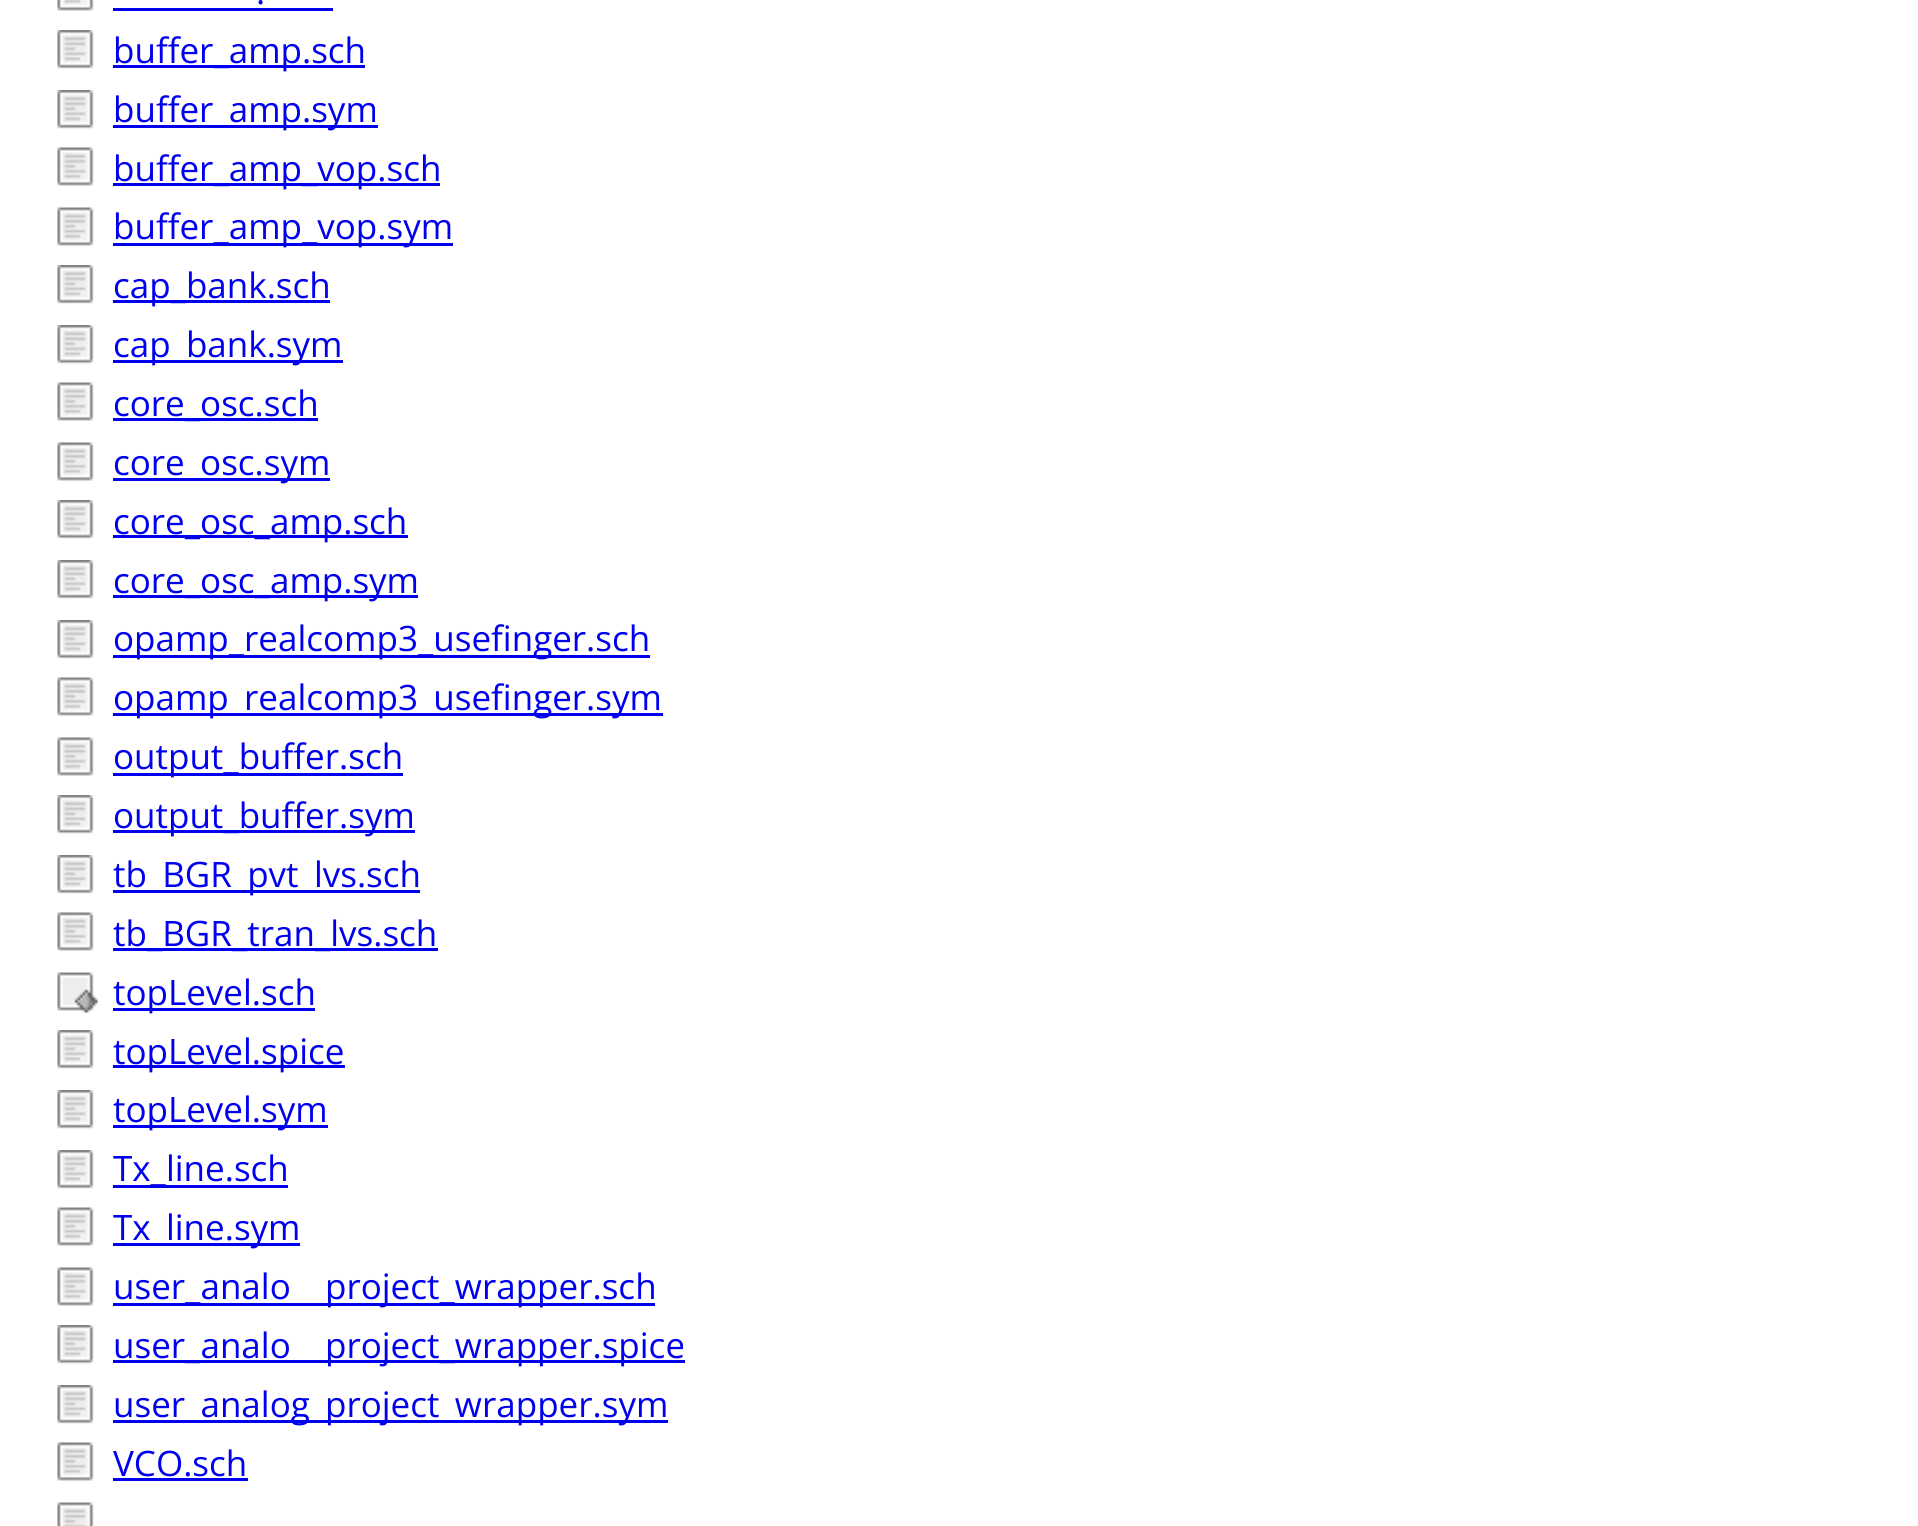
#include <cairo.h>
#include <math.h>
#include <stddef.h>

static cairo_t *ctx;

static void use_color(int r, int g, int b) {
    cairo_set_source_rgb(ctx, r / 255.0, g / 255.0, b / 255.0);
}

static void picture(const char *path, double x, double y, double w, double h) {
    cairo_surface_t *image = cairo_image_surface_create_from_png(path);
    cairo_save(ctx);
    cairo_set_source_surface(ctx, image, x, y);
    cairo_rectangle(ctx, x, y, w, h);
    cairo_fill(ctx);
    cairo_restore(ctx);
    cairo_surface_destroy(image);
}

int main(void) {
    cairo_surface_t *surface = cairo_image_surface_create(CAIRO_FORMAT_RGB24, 1918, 1526);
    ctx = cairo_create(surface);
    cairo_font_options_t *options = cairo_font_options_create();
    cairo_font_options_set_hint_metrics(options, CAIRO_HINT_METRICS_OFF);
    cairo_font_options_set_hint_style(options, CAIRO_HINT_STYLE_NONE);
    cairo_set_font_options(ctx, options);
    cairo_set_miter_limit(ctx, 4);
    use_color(255, 255, 255);
    cairo_paint(ctx);
    picture("img1.png", 57, 0, 37, 11);
    cairo_select_font_face(ctx, "Open Sans", CAIRO_FONT_SLANT_NORMAL, CAIRO_FONT_WEIGHT_NORMAL);
    cairo_set_font_size(ctx, 35);
    use_color(0, 0, 238);
    cairo_move_to(ctx, 256, 4);
    cairo_show_text(ctx, ".");
    cairo_rectangle(ctx, 113, 8, 220, 3);
    cairo_fill(ctx);
    picture("img2.png", 57, 30, 37, 39);
    cairo_rectangle(ctx, 113, 65, 252, 3);
    cairo_fill(ctx);
    cairo_move_to(ctx, 113, 63);
    cairo_show_text(ctx, "buffer_amp.sch");
    picture("img2.png", 57, 90, 37, 39);
    cairo_rectangle(ctx, 113, 125, 265, 3);
    cairo_fill(ctx);
    cairo_move_to(ctx, 113, 122);
    cairo_show_text(ctx, "buffer_amp.sym");
    picture("img3.png", 57, 147, 37, 39);
    cairo_rectangle(ctx, 113, 183, 327, 3);
    cairo_fill(ctx);
    cairo_move_to(ctx, 113, 181);
    cairo_show_text(ctx, "buffer_amp_vop.sch");
    picture("img3.png", 57, 207, 37, 39);
    cairo_rectangle(ctx, 113, 243, 340, 3);
    cairo_fill(ctx);
    cairo_move_to(ctx, 113, 239);
    cairo_show_text(ctx, "buffer_amp_vop.sym");
    picture("img4.png", 57, 265, 37, 39);
    cairo_rectangle(ctx, 113, 300, 217, 3);
    cairo_fill(ctx);
    cairo_move_to(ctx, 113, 298);
    cairo_show_text(ctx, "cap_bank.sch");
    picture("img2.png", 57, 325, 37, 39);
    cairo_rectangle(ctx, 113, 360, 230, 3);
    cairo_fill(ctx);
    cairo_move_to(ctx, 113, 357);
    cairo_show_text(ctx, "cap_bank.sym");
    picture("img3.png", 57, 382, 37, 39);
    cairo_rectangle(ctx, 113, 418, 205, 3);
    cairo_fill(ctx);
    cairo_move_to(ctx, 113, 416);
    cairo_show_text(ctx, "core_osc.sch");
    picture("img3.png", 57, 442, 37, 39);
    cairo_rectangle(ctx, 113, 478, 217, 3);
    cairo_fill(ctx);
    cairo_move_to(ctx, 113, 475);
    cairo_show_text(ctx, "core_osc.sym");
    picture("img2.png", 57, 500, 37, 39);
    cairo_rectangle(ctx, 113, 535, 295, 3);
    cairo_fill(ctx);
    cairo_move_to(ctx, 113, 534);
    cairo_show_text(ctx, "core_osc_amp.sch");
    picture("img2.png", 57, 560, 37, 39);
    cairo_rectangle(ctx, 113, 595, 305, 3);
    cairo_fill(ctx);
    cairo_move_to(ctx, 113, 593);
    cairo_show_text(ctx, "core_osc_amp.sym");
    picture("img2.png", 57, 620, 37, 39);
    cairo_rectangle(ctx, 113, 655, 537, 3);
    cairo_fill(ctx);
    cairo_move_to(ctx, 113, 651);
    cairo_show_text(ctx, "opamp_realcomp3_usefinger.sch");
    picture("img5.png", 57, 677, 37, 39);
    cairo_rectangle(ctx, 113, 713, 550, 3);
    cairo_fill(ctx);
    cairo_move_to(ctx, 113, 710);
    cairo_show_text(ctx, "opamp_realcomp3_usefinger.sym");
    picture("img3.png", 57, 737, 37, 39);
    cairo_rectangle(ctx, 113, 773, 290, 3);
    cairo_fill(ctx);
    cairo_move_to(ctx, 113, 769);
    cairo_show_text(ctx, "output_buffer.sch");
    picture("img2.png", 57, 795, 37, 39);
    cairo_rectangle(ctx, 113, 830, 302, 3);
    cairo_fill(ctx);
    cairo_move_to(ctx, 113, 828);
    cairo_show_text(ctx, "output_buffer.sym");
    picture("img2.png", 57, 855, 37, 39);
    cairo_rectangle(ctx, 113, 890, 307, 3);
    cairo_fill(ctx);
    cairo_move_to(ctx, 113, 887);
    cairo_show_text(ctx, "tb_BGR_pvt_lvs.sch");
    picture("img3.png", 57, 912, 37, 39);
    cairo_rectangle(ctx, 113, 948, 325, 3);
    cairo_fill(ctx);
    cairo_move_to(ctx, 113, 946);
    cairo_show_text(ctx, "tb_BGR_tran_lvs.sch");
    picture("img6.png", 57, 972, 41, 41);
    cairo_rectangle(ctx, 113, 1008, 202, 3);
    cairo_fill(ctx);
    cairo_move_to(ctx, 113, 1005);
    cairo_show_text(ctx, "topLevel.sch");
    picture("img2.png", 57, 1030, 37, 39);
    cairo_rectangle(ctx, 113, 1065, 232, 3);
    cairo_fill(ctx);
    cairo_move_to(ctx, 113, 1064);
    cairo_show_text(ctx, "topLevel.spice");
    picture("img2.png", 57, 1090, 37, 39);
    cairo_rectangle(ctx, 113, 1125, 215, 3);
    cairo_fill(ctx);
    cairo_move_to(ctx, 113, 1122);
    cairo_show_text(ctx, "topLevel.sym");
    picture("img2.png", 57, 1150, 37, 39);
    cairo_rectangle(ctx, 113, 1185, 175, 3);
    cairo_fill(ctx);
    cairo_move_to(ctx, 113, 1181);
    cairo_show_text(ctx, "Tx_line.sch");
    picture("img3.png", 57, 1207, 37, 39);
    cairo_rectangle(ctx, 113, 1243, 187, 3);
    cairo_fill(ctx);
    cairo_move_to(ctx, 113, 1240);
    cairo_show_text(ctx, "Tx_line.sym");
    picture("img3.png", 57, 1267, 37, 39);
    cairo_rectangle(ctx, 113, 1303, 542, 3);
    cairo_fill(ctx);
    cairo_move_to(ctx, 113, 1299);
    cairo_show_text(ctx, "user_analo");
    cairo_move_to(ctx, 325, 1299);
    cairo_show_text(ctx, "project_wrapper.sch");
    picture("img2.png", 57, 1325, 37, 39);
    cairo_rectangle(ctx, 113, 1360, 572, 3);
    cairo_fill(ctx);
    cairo_move_to(ctx, 113, 1358);
    cairo_show_text(ctx, "user_analo");
    cairo_move_to(ctx, 325, 1358);
    cairo_show_text(ctx, "project_wrapper.spice");
    picture("img2.png", 57, 1385, 37, 39);
    cairo_rectangle(ctx, 113, 1420, 555, 3);
    cairo_fill(ctx);
    cairo_move_to(ctx, 113, 1417);
    cairo_show_text(ctx, "user_analog_project_wrapper.sym");
    picture("img3.png", 57, 1442, 37, 39);
    cairo_move_to(ctx, 113, 1476);
    cairo_show_text(ctx, "VCO.sch");
    cairo_rectangle(ctx, 113, 1478, 135, 3);
    cairo_fill(ctx);
    picture("img7.png", 57, 1502, 37, 24);
    cairo_surface_write_to_png(surface, "result.png");
    cairo_font_options_destroy(options);
    cairo_destroy(ctx);
    cairo_surface_destroy(surface);
    return 0;
}
